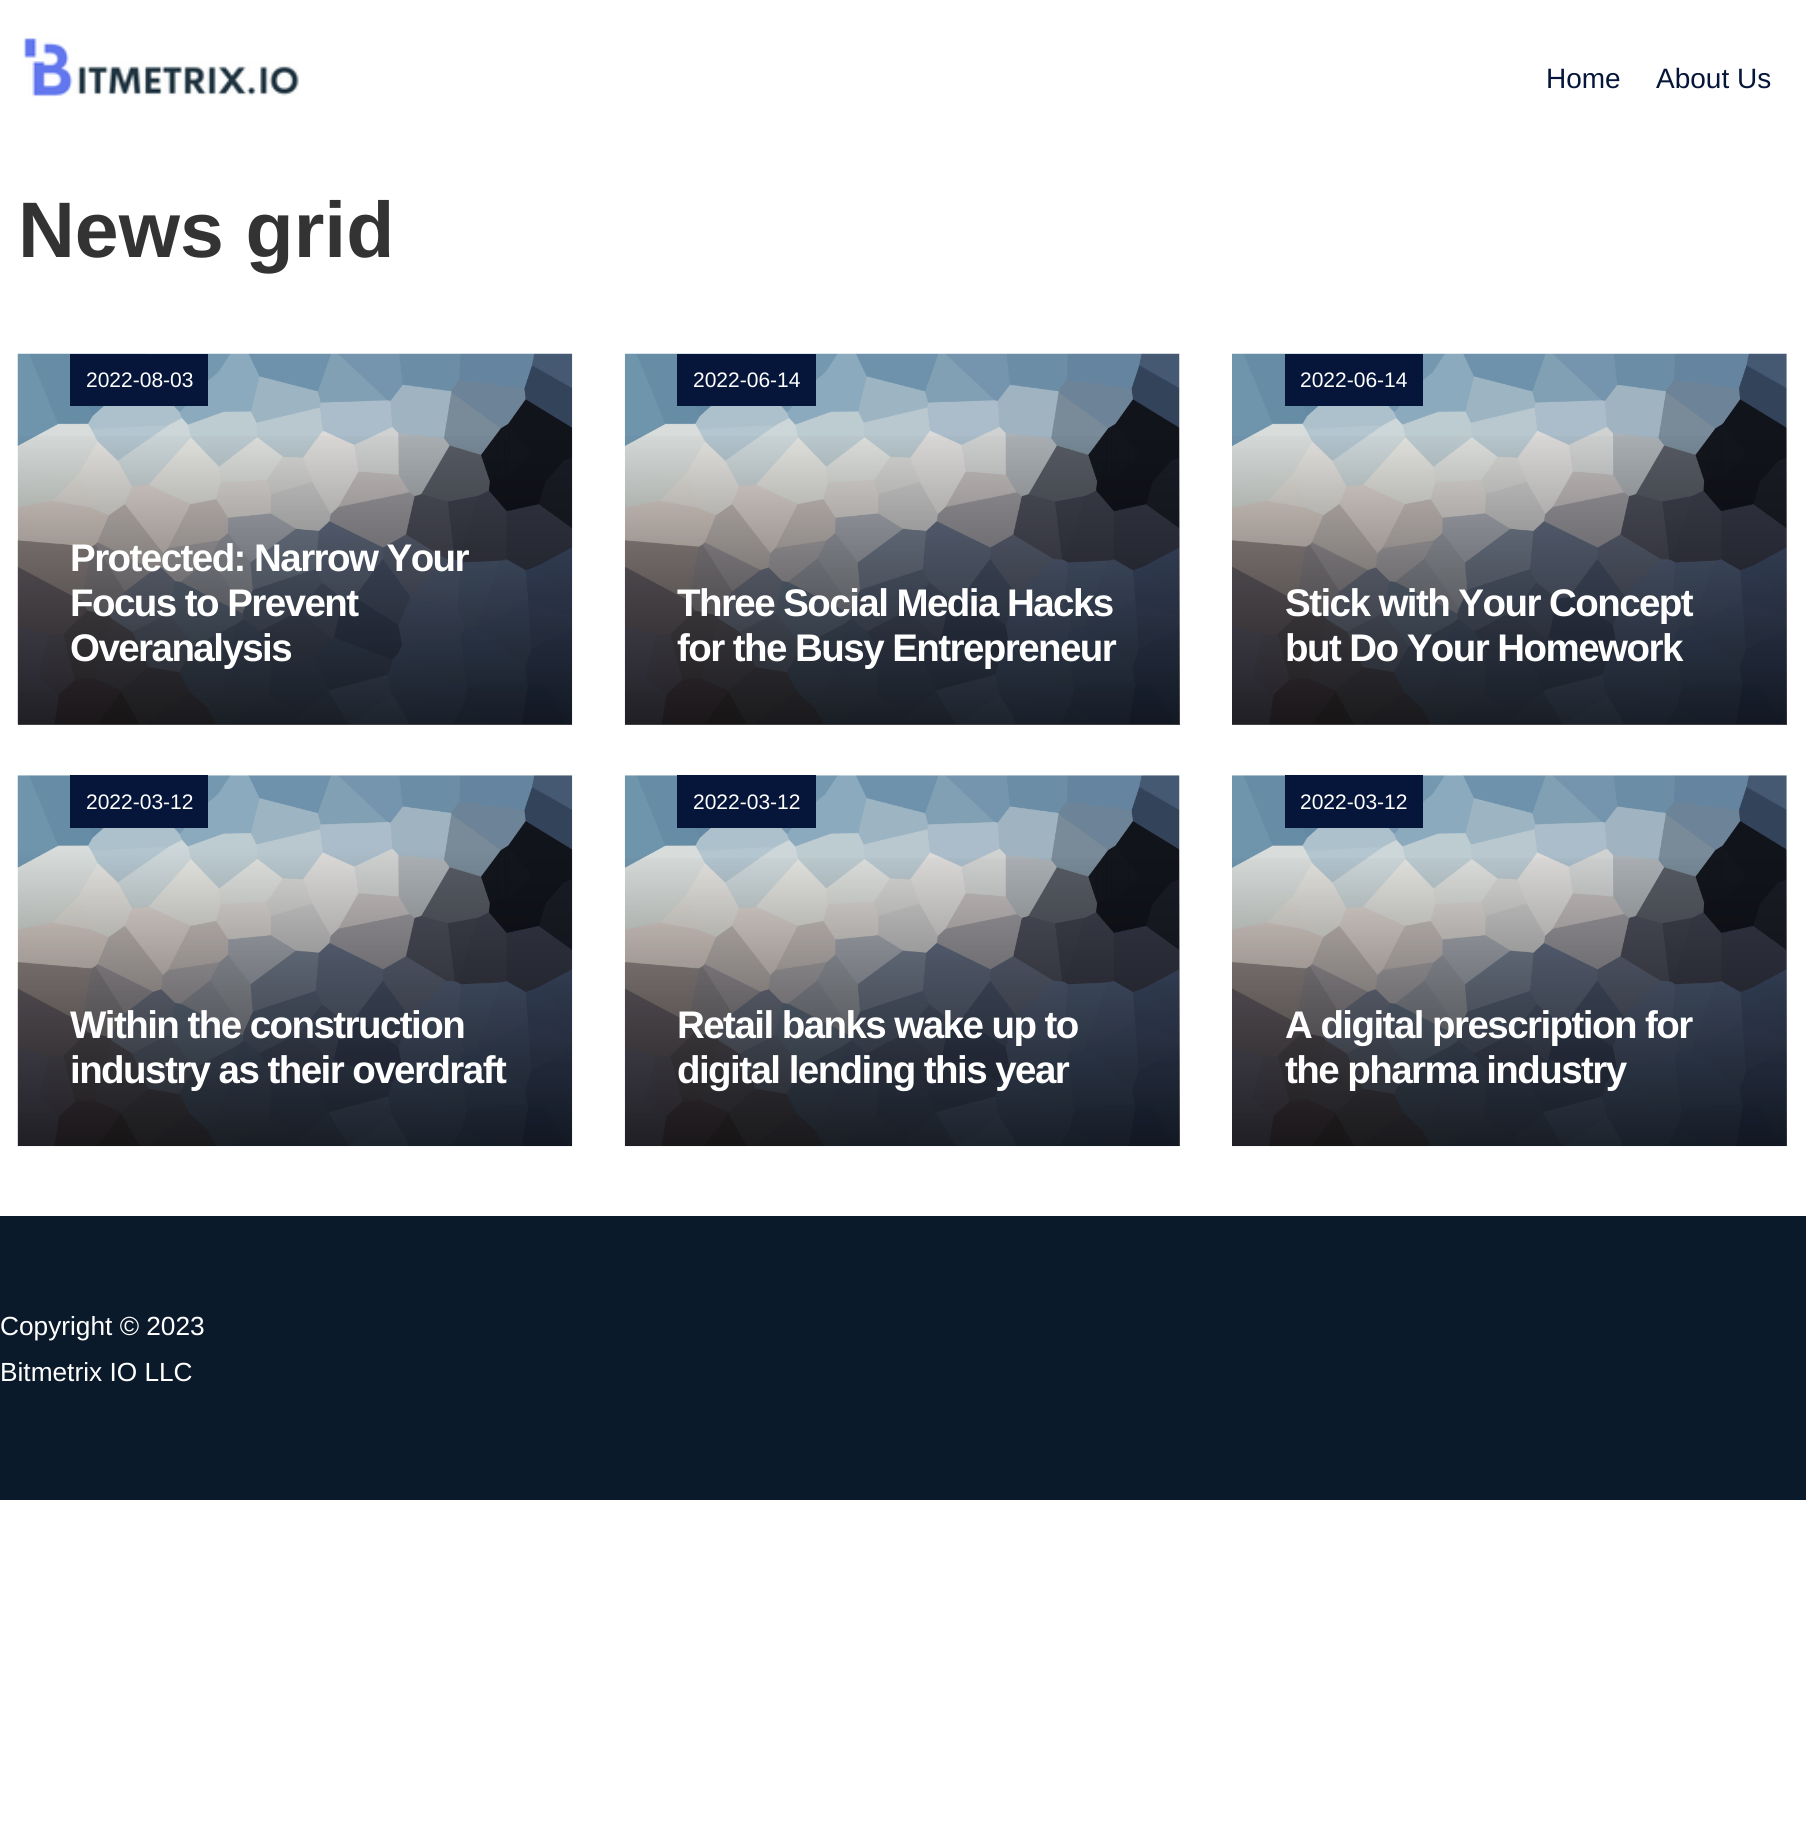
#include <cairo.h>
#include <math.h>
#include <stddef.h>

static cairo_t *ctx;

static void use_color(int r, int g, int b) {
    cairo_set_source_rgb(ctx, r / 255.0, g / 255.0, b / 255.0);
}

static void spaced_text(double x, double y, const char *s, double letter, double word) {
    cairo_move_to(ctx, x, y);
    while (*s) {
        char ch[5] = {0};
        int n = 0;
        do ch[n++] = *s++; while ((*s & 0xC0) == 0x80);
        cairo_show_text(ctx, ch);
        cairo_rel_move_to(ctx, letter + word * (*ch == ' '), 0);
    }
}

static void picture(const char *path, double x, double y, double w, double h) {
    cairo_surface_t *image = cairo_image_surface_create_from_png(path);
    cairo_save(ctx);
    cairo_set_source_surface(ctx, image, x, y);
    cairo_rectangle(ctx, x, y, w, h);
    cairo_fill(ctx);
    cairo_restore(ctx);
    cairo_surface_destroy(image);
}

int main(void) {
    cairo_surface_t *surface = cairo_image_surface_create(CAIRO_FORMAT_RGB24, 1806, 1838);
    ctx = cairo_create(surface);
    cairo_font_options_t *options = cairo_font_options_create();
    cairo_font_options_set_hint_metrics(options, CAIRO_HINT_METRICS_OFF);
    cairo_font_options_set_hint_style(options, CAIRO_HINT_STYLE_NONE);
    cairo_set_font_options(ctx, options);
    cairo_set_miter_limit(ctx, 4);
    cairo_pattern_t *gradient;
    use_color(255, 255, 255);
    cairo_paint(ctx);
    picture("img1.png", 23, 37, 276, 60);
    cairo_select_font_face(ctx, "Liberation Sans", CAIRO_FONT_SLANT_NORMAL, CAIRO_FONT_WEIGHT_NORMAL);
    cairo_set_font_size(ctx, 28);
    use_color(6, 22, 58);
    cairo_move_to(ctx, 1546, 88);
    cairo_show_text(ctx, "Home");
    cairo_move_to(ctx, 1656, 88);
    cairo_show_text(ctx, "About Us");
    cairo_select_font_face(ctx, "Liberation Sans", CAIRO_FONT_SLANT_NORMAL, CAIRO_FONT_WEIGHT_BOLD);
    cairo_set_font_size(ctx, 78.75);
    use_color(51, 51, 51);
    cairo_move_to(ctx, 18, 257);
    cairo_show_text(ctx, "News grid");
    picture("img2.png", 17, 353, 556, 372);
    use_color(6, 22, 58);
    cairo_rectangle(ctx, 70, 354, 138, 52);
    cairo_fill(ctx);
    cairo_select_font_face(ctx, "Liberation Sans", CAIRO_FONT_SLANT_NORMAL, CAIRO_FONT_WEIGHT_NORMAL);
    cairo_set_font_size(ctx, 21);
    use_color(255, 255, 255);
    cairo_move_to(ctx, 86, 387);
    cairo_show_text(ctx, "2022-08-03");
    gradient = cairo_pattern_create_linear(295, 725, 295, 427);
    cairo_pattern_add_color_stop_rgba(gradient, 0, 0, 0, 0, 0.7);
    cairo_pattern_add_color_stop_rgba(gradient, 1, 0, 0, 0, 0);
    cairo_set_source(ctx, gradient);
    cairo_pattern_destroy(gradient);
    cairo_rectangle(ctx, 18, 436, 554, 289);
    cairo_fill(ctx);
    cairo_select_font_face(ctx, "Liberation Sans", CAIRO_FONT_SLANT_NORMAL, CAIRO_FONT_WEIGHT_BOLD);
    cairo_set_font_size(ctx, 38.5);
    use_color(255, 255, 255);
    spaced_text(70, 571, "Protected: Narrow Your", -1.55, 0);
    spaced_text(70, 616, "Focus to Prevent", -1.55, 0);
    spaced_text(70, 661, "Overanalysis", -1.55, 0);
    picture("img3.png", 624, 353, 556, 372);
    use_color(6, 22, 58);
    cairo_rectangle(ctx, 677, 354, 139, 52);
    cairo_fill(ctx);
    cairo_select_font_face(ctx, "Liberation Sans", CAIRO_FONT_SLANT_NORMAL, CAIRO_FONT_WEIGHT_NORMAL);
    cairo_set_font_size(ctx, 21);
    use_color(255, 255, 255);
    cairo_move_to(ctx, 693, 387);
    cairo_show_text(ctx, "2022-06-14");
    gradient = cairo_pattern_create_linear(902, 725, 902, 427);
    cairo_pattern_add_color_stop_rgba(gradient, 0, 0, 0, 0, 0.7);
    cairo_pattern_add_color_stop_rgba(gradient, 1, 0, 0, 0, 0);
    cairo_set_source(ctx, gradient);
    cairo_pattern_destroy(gradient);
    cairo_rectangle(ctx, 625, 436, 555, 289);
    cairo_fill(ctx);
    cairo_select_font_face(ctx, "Liberation Sans", CAIRO_FONT_SLANT_NORMAL, CAIRO_FONT_WEIGHT_BOLD);
    cairo_set_font_size(ctx, 38.5);
    use_color(255, 255, 255);
    spaced_text(677, 616, "Three Social Media Hacks", -1.55, 0);
    spaced_text(677, 661, "for the Busy Entrepreneur", -1.55, 0);
    picture("img4.png", 1232, 353, 555, 372);
    use_color(6, 22, 58);
    cairo_rectangle(ctx, 1285, 354, 138, 52);
    cairo_fill(ctx);
    cairo_select_font_face(ctx, "Liberation Sans", CAIRO_FONT_SLANT_NORMAL, CAIRO_FONT_WEIGHT_NORMAL);
    cairo_set_font_size(ctx, 21);
    use_color(255, 255, 255);
    cairo_move_to(ctx, 1300, 387);
    cairo_show_text(ctx, "2022-06-14");
    gradient = cairo_pattern_create_linear(1509, 725, 1509, 427);
    cairo_pattern_add_color_stop_rgba(gradient, 0, 0, 0, 0, 0.7);
    cairo_pattern_add_color_stop_rgba(gradient, 1, 0, 0, 0, 0);
    cairo_set_source(ctx, gradient);
    cairo_pattern_destroy(gradient);
    cairo_rectangle(ctx, 1232, 436, 555, 289);
    cairo_fill(ctx);
    cairo_select_font_face(ctx, "Liberation Sans", CAIRO_FONT_SLANT_NORMAL, CAIRO_FONT_WEIGHT_BOLD);
    cairo_set_font_size(ctx, 38.5);
    use_color(255, 255, 255);
    spaced_text(1285, 616, "Stick with Your Concept", -1.55, 0);
    spaced_text(1285, 661, "but Do Your Homework", -1.55, 0);
    picture("img5.png", 17, 775, 556, 372);
    use_color(6, 22, 58);
    cairo_rectangle(ctx, 70, 775, 138, 53);
    cairo_fill(ctx);
    cairo_select_font_face(ctx, "Liberation Sans", CAIRO_FONT_SLANT_NORMAL, CAIRO_FONT_WEIGHT_NORMAL);
    cairo_set_font_size(ctx, 21);
    use_color(255, 255, 255);
    cairo_move_to(ctx, 86, 809);
    cairo_show_text(ctx, "2022-03-12");
    cairo_select_font_face(ctx, "Liberation Sans", CAIRO_FONT_SLANT_NORMAL, CAIRO_FONT_WEIGHT_BOLD);
    cairo_set_font_size(ctx, 38.5);
    spaced_text(70, 1038, "Within the construction", -1.55, 0);
    spaced_text(70, 1083, "industry as their overdraft", -1.55, 0);
    picture("img6.png", 624, 775, 556, 372);
    use_color(6, 22, 58);
    cairo_rectangle(ctx, 677, 775, 139, 53);
    cairo_fill(ctx);
    cairo_select_font_face(ctx, "Liberation Sans", CAIRO_FONT_SLANT_NORMAL, CAIRO_FONT_WEIGHT_NORMAL);
    cairo_set_font_size(ctx, 21);
    use_color(255, 255, 255);
    cairo_move_to(ctx, 693, 809);
    cairo_show_text(ctx, "2022-03-12");
    gradient = cairo_pattern_create_linear(902, 1146, 902, 849);
    cairo_pattern_add_color_stop_rgba(gradient, 0, 0, 0, 0, 0.7);
    cairo_pattern_add_color_stop_rgba(gradient, 1, 0, 0, 0, 0);
    cairo_set_source(ctx, gradient);
    cairo_pattern_destroy(gradient);
    cairo_rectangle(ctx, 625, 858, 555, 288);
    cairo_fill(ctx);
    cairo_select_font_face(ctx, "Liberation Sans", CAIRO_FONT_SLANT_NORMAL, CAIRO_FONT_WEIGHT_BOLD);
    cairo_set_font_size(ctx, 38.5);
    use_color(255, 255, 255);
    spaced_text(677, 1038, "Retail banks wake up to", -1.55, 0);
    spaced_text(677, 1083, "digital lending this year", -1.55, 0);
    picture("img7.png", 1232, 775, 555, 372);
    use_color(6, 22, 58);
    cairo_rectangle(ctx, 1285, 775, 138, 53);
    cairo_fill(ctx);
    cairo_select_font_face(ctx, "Liberation Sans", CAIRO_FONT_SLANT_NORMAL, CAIRO_FONT_WEIGHT_NORMAL);
    cairo_set_font_size(ctx, 21);
    use_color(255, 255, 255);
    cairo_move_to(ctx, 1300, 809);
    cairo_show_text(ctx, "2022-03-12");
    gradient = cairo_pattern_create_linear(1509, 1146, 1509, 849);
    cairo_pattern_add_color_stop_rgba(gradient, 0, 0, 0, 0, 0.7);
    cairo_pattern_add_color_stop_rgba(gradient, 1, 0, 0, 0, 0);
    cairo_set_source(ctx, gradient);
    cairo_pattern_destroy(gradient);
    cairo_rectangle(ctx, 1232, 858, 555, 288);
    cairo_fill(ctx);
    cairo_select_font_face(ctx, "Liberation Sans", CAIRO_FONT_SLANT_NORMAL, CAIRO_FONT_WEIGHT_BOLD);
    cairo_set_font_size(ctx, 38.5);
    use_color(255, 255, 255);
    spaced_text(1285, 1038, "A digital prescription for", -1.55, 0);
    spaced_text(1285, 1083, "the pharma industry", -1.55, 0);
    use_color(10, 26, 43);
    cairo_rectangle(ctx, 0, 1216, 1806, 284);
    cairo_fill(ctx);
    cairo_select_font_face(ctx, "Liberation Sans", CAIRO_FONT_SLANT_NORMAL, CAIRO_FONT_WEIGHT_NORMAL);
    cairo_set_font_size(ctx, 26.25);
    use_color(255, 255, 255);
    cairo_move_to(ctx, 0, 1335);
    cairo_show_text(ctx, "Copyright © 2023");
    cairo_move_to(ctx, 0, 1381);
    cairo_show_text(ctx, "Bitmetrix IO LLC");
    cairo_surface_write_to_png(surface, "result.png");
    cairo_font_options_destroy(options);
    cairo_destroy(ctx);
    cairo_surface_destroy(surface);
    return 0;
}
